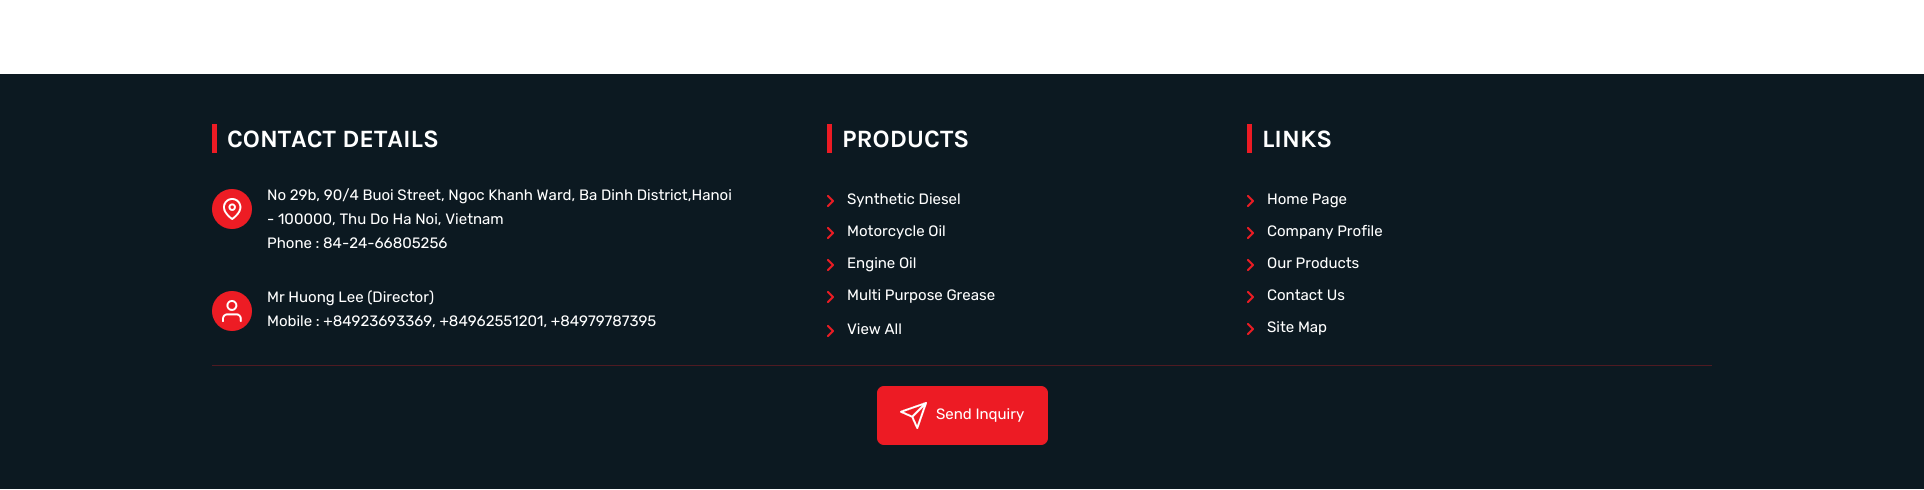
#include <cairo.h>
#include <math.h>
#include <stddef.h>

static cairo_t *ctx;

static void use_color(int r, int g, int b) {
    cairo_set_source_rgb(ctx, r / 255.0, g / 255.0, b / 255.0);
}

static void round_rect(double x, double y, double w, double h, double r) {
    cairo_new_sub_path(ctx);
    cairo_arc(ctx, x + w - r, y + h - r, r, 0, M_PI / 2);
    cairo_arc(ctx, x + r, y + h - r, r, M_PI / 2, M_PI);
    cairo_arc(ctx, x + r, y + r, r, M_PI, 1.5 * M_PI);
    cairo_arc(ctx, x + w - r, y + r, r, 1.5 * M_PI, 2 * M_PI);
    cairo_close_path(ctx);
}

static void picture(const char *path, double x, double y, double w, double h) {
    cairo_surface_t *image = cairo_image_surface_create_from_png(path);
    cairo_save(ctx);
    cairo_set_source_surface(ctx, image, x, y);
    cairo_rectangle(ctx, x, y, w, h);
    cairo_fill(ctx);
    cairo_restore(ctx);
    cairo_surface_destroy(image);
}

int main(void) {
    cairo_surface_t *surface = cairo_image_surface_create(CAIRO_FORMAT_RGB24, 1924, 490);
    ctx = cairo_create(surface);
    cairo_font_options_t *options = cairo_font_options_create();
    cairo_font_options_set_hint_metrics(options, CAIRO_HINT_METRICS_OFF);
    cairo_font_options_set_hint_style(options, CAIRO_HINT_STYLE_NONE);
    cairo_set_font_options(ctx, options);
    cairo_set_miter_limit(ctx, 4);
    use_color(255, 255, 255);
    cairo_paint(ctx);
    use_color(12, 25, 33);
    cairo_rectangle(ctx, 0, 74, 1924, 415);
    cairo_fill(ctx);
    use_color(237, 27, 36);
    cairo_rectangle(ctx, 212, 124, 5, 29);
    cairo_fill(ctx);
    cairo_select_font_face(ctx, "Karla", CAIRO_FONT_SLANT_NORMAL, CAIRO_FONT_WEIGHT_BOLD);
    cairo_set_font_size(ctx, 25);
    use_color(255, 255, 255);
    cairo_move_to(ctx, 227, 147);
    cairo_show_text(ctx, "CONTACT DETAILS");
    picture("img1.png", 212, 189, 40, 40);
    cairo_select_font_face(ctx, "Rubik", CAIRO_FONT_SLANT_NORMAL, CAIRO_FONT_WEIGHT_NORMAL);
    cairo_set_font_size(ctx, 15);
    cairo_move_to(ctx, 267, 200);
    cairo_show_text(ctx, "No 29b, 90/4 Buoi Street, Ngoc Khanh Ward, Ba Dinh District,Hanoi");
    cairo_move_to(ctx, 267, 224);
    cairo_show_text(ctx, "- 100000, Thu Do Ha Noi, Vietnam");
    cairo_move_to(ctx, 267, 248);
    cairo_show_text(ctx, "Phone : 84-24-66805256");
    picture("img2.png", 212, 291, 40, 40);
    cairo_move_to(ctx, 267, 302);
    cairo_show_text(ctx, "Mr Huong Lee (Director)");
    cairo_move_to(ctx, 267, 326);
    cairo_show_text(ctx, "Mobile : +84923693369, +84962551201, +84979787395");
    use_color(237, 27, 36);
    cairo_rectangle(ctx, 827, 124, 5, 29);
    cairo_fill(ctx);
    cairo_select_font_face(ctx, "Karla", CAIRO_FONT_SLANT_NORMAL, CAIRO_FONT_WEIGHT_BOLD);
    cairo_set_font_size(ctx, 25);
    use_color(255, 255, 255);
    cairo_move_to(ctx, 842, 147);
    cairo_show_text(ctx, "PRODUCTS");
    picture("img3.png", 827, 195, 7, 12);
    cairo_select_font_face(ctx, "Rubik", CAIRO_FONT_SLANT_NORMAL, CAIRO_FONT_WEIGHT_NORMAL);
    cairo_set_font_size(ctx, 15);
    cairo_move_to(ctx, 847, 204);
    cairo_show_text(ctx, "Synthetic Diesel");
    picture("img3.png", 827, 227, 7, 12);
    cairo_move_to(ctx, 847, 236);
    cairo_show_text(ctx, "Motorcycle Oil");
    picture("img3.png", 827, 259, 7, 12);
    cairo_move_to(ctx, 847, 268);
    cairo_show_text(ctx, "Engine Oil");
    picture("img3.png", 827, 291, 7, 12);
    cairo_move_to(ctx, 847, 300);
    cairo_show_text(ctx, "Multi Purpose Grease");
    picture("img3.png", 827, 325, 7, 12);
    cairo_move_to(ctx, 847, 334);
    cairo_show_text(ctx, "View All");
    use_color(237, 27, 36);
    cairo_rectangle(ctx, 1247, 124, 5, 29);
    cairo_fill(ctx);
    cairo_select_font_face(ctx, "Karla", CAIRO_FONT_SLANT_NORMAL, CAIRO_FONT_WEIGHT_BOLD);
    cairo_set_font_size(ctx, 25);
    use_color(255, 255, 255);
    cairo_move_to(ctx, 1262, 147);
    cairo_show_text(ctx, "LINKS");
    picture("img3.png", 1247, 195, 7, 12);
    cairo_select_font_face(ctx, "Rubik", CAIRO_FONT_SLANT_NORMAL, CAIRO_FONT_WEIGHT_NORMAL);
    cairo_set_font_size(ctx, 15);
    cairo_move_to(ctx, 1267, 204);
    cairo_show_text(ctx, "Home Page");
    picture("img3.png", 1247, 227, 7, 12);
    cairo_move_to(ctx, 1267, 236);
    cairo_show_text(ctx, "Company Profile");
    picture("img3.png", 1247, 259, 7, 12);
    cairo_move_to(ctx, 1267, 268);
    cairo_show_text(ctx, "Our Products");
    picture("img3.png", 1247, 291, 7, 12);
    cairo_move_to(ctx, 1267, 300);
    cairo_show_text(ctx, "Contact Us");
    picture("img3.png", 1247, 323, 7, 12);
    cairo_move_to(ctx, 1267, 332);
    cairo_show_text(ctx, "Site Map");
    use_color(79, 26, 34);
    cairo_rectangle(ctx, 212, 365, 1500, 1);
    cairo_fill(ctx);
    use_color(237, 27, 36);
    round_rect(877.5, 386.5, 170, 58, 6.5);
    cairo_fill_preserve(ctx);
    cairo_set_line_width(ctx, 1);
    cairo_stroke(ctx);
    picture("img4.png", 900, 402, 27, 27);
    use_color(255, 255, 255);
    cairo_move_to(ctx, 936, 419);
    cairo_show_text(ctx, "Send Inquiry");
    cairo_surface_write_to_png(surface, "result.png");
    cairo_font_options_destroy(options);
    cairo_destroy(ctx);
    cairo_surface_destroy(surface);
    return 0;
}
